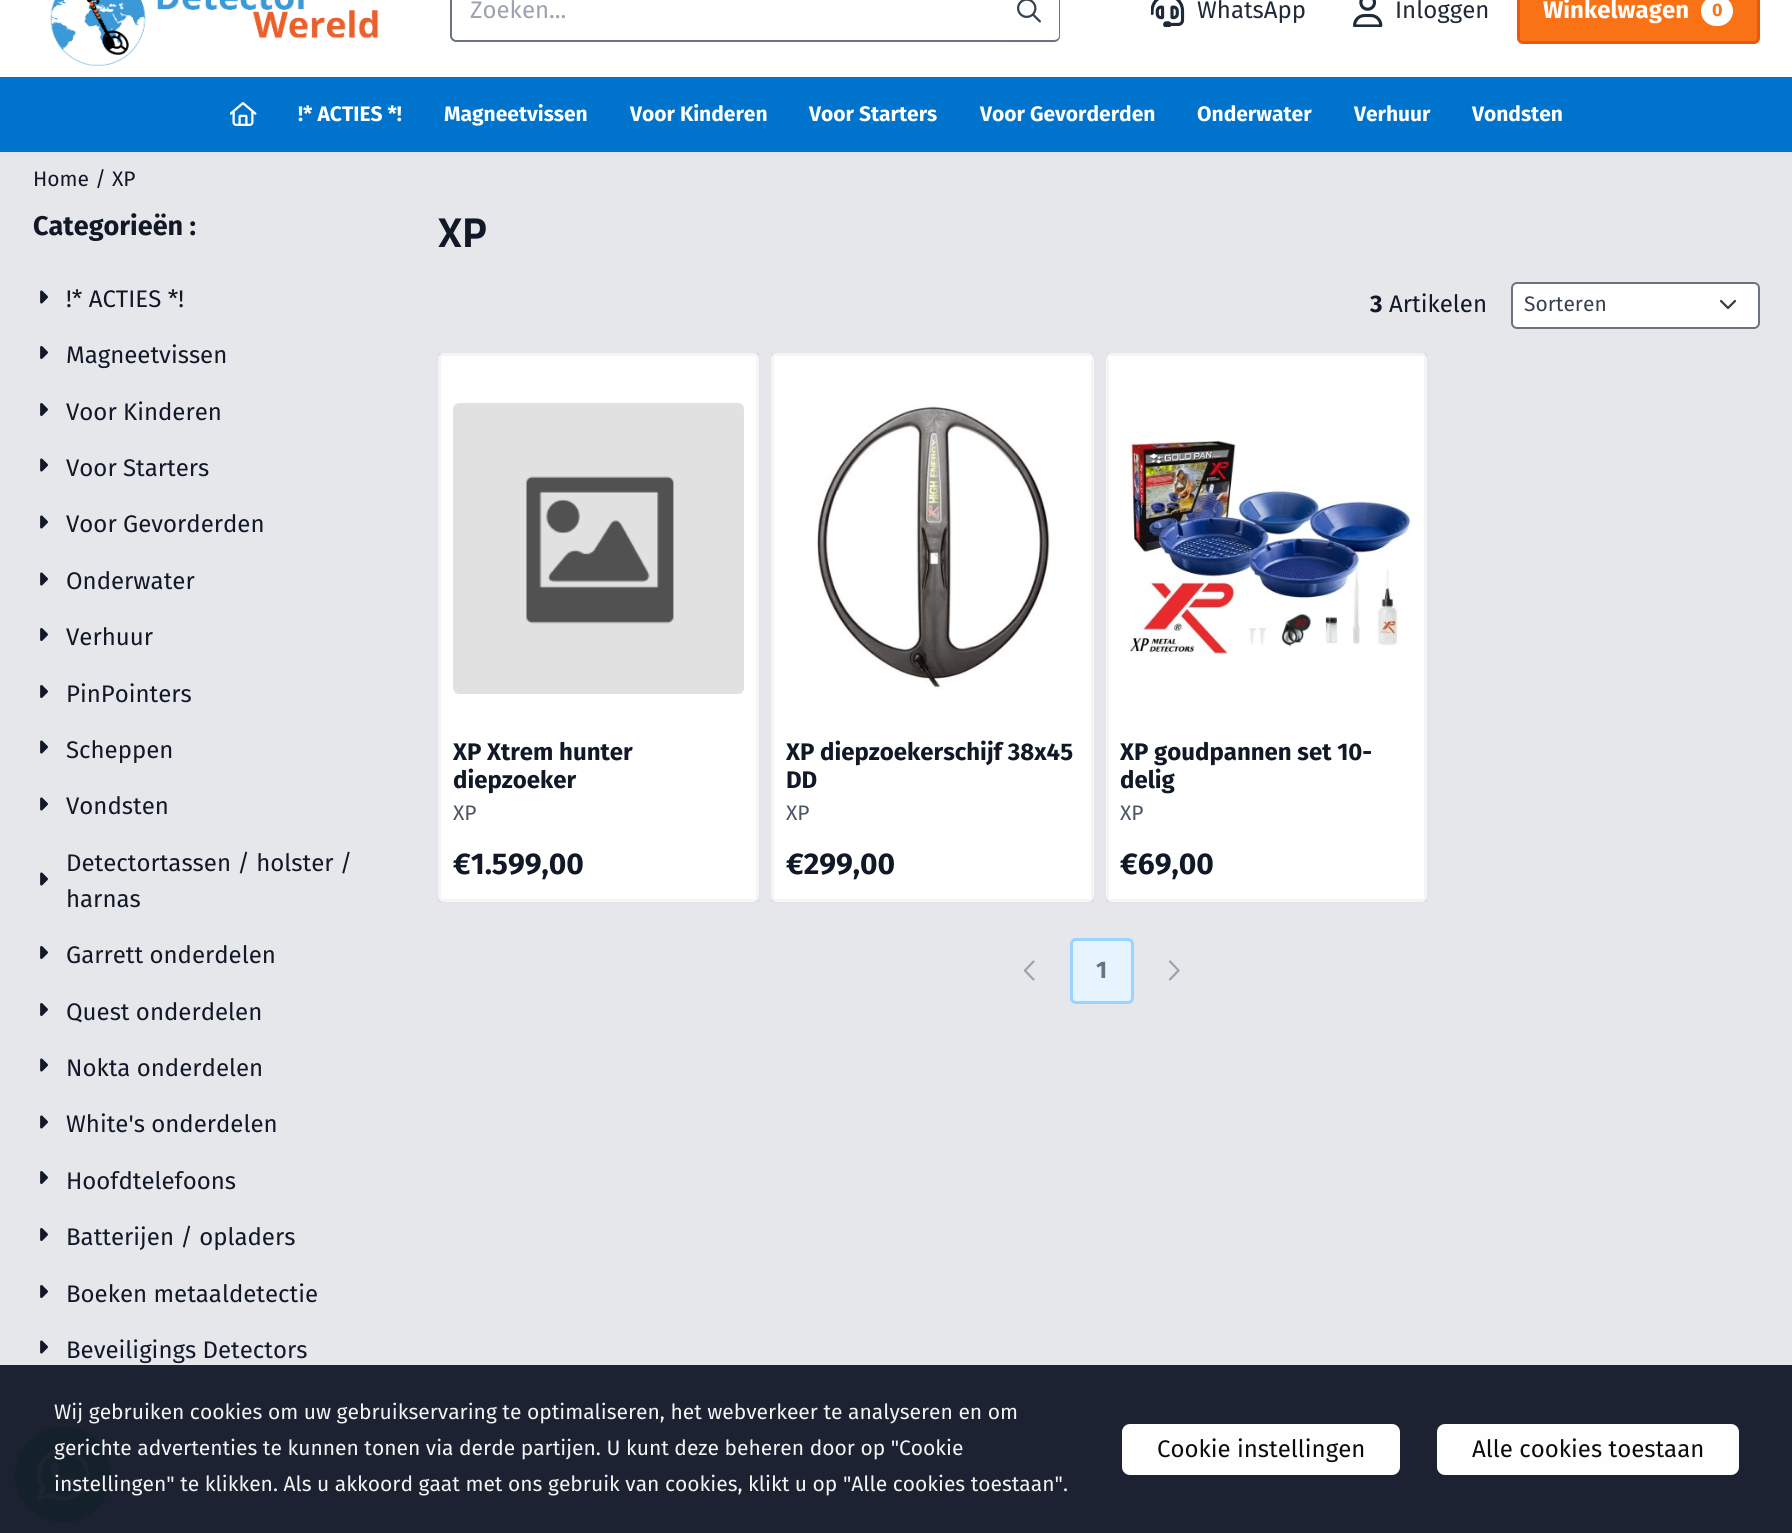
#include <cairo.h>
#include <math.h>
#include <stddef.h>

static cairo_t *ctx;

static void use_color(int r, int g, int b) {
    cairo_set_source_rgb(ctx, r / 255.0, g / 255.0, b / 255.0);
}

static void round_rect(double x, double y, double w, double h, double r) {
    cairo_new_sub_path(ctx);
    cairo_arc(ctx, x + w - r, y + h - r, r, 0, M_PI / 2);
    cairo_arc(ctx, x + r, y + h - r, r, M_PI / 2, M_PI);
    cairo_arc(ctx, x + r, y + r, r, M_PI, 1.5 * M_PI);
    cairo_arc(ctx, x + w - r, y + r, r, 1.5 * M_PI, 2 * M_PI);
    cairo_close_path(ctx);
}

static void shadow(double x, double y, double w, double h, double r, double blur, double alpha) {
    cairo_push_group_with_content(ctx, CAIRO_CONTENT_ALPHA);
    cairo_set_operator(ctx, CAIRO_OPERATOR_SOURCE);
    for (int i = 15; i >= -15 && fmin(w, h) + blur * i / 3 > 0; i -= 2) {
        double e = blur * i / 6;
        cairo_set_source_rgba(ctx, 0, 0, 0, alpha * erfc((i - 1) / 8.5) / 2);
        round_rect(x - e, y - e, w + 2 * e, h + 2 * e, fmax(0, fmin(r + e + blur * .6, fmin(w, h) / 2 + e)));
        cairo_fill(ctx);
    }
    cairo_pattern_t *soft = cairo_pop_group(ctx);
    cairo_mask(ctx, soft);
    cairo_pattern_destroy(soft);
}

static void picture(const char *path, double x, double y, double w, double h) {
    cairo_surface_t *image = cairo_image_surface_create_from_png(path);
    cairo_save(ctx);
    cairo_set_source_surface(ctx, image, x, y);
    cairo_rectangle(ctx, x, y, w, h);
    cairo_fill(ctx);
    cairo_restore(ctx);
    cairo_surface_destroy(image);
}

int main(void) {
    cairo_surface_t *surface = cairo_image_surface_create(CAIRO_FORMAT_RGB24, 1792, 1533);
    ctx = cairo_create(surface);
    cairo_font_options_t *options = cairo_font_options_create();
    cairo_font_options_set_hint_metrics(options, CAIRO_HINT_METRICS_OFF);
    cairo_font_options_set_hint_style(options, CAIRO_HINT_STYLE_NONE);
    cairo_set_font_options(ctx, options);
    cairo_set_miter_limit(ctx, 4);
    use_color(229, 231, 235);
    cairo_paint(ctx);
    use_color(28, 34, 49);
    cairo_rectangle(ctx, 0, 1365, 1792, 168);
    cairo_fill(ctx);
    use_color(255, 255, 255);
    cairo_rectangle(ctx, 0, 0, 1792, 77);
    cairo_fill(ctx);
    picture("img1.png", 50, 0, 329, 66);
    use_color(107, 114, 128);
    cairo_set_fill_rule(ctx, CAIRO_FILL_RULE_EVEN_ODD);
    cairo_new_path(ctx);
    cairo_move_to(ctx, 456, -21);
    cairo_line_to(ctx, 1000, -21);
    cairo_line_to(ctx, 1000, 42);
    cairo_line_to(ctx, 456, 42);
    cairo_curve_to(ctx, 453, 42, 450, 39, 450, 36);
    cairo_line_to(ctx, 450, -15);
    cairo_curve_to(ctx, 450, -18, 453, -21, 456, -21);
    cairo_close_path(ctx);
    cairo_move_to(ctx, 456, -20);
    cairo_line_to(ctx, 1000, -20);
    cairo_line_to(ctx, 1000, 40);
    cairo_line_to(ctx, 456, 40);
    cairo_curve_to(ctx, 454, 40, 452, 38, 452, 36);
    cairo_line_to(ctx, 452, -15);
    cairo_curve_to(ctx, 452, -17, 454, -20, 456, -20);
    cairo_close_path(ctx);
    cairo_fill(ctx);
    cairo_select_font_face(ctx, "Fira Sans", CAIRO_FONT_SLANT_NORMAL, CAIRO_FONT_WEIGHT_NORMAL);
    cairo_set_font_size(ctx, 24);
    use_color(156, 163, 175);
    cairo_move_to(ctx, 470, 18);
    cairo_show_text(ctx, "Zoeken...");
    use_color(249, 115, 22);
    shadow(999, -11, 62, 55, 6, 1.5, 0.05);
    use_color(255, 255, 255);
    cairo_new_path(ctx);
    cairo_move_to(ctx, 999, -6);
    cairo_line_to(ctx, 1055, -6);
    cairo_curve_to(ctx, 1058.5, -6, 1061, -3.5, 1061, 0);
    cairo_line_to(ctx, 1061, 36);
    cairo_curve_to(ctx, 1061, 39.5, 1058.5, 42, 1055, 42);
    cairo_line_to(ctx, 999, 42);
    cairo_close_path(ctx);
    cairo_fill(ctx);
    use_color(107, 114, 128);
    cairo_new_path(ctx);
    cairo_move_to(ctx, 999, -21);
    cairo_line_to(ctx, 1054, -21);
    cairo_curve_to(ctx, 1058, -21, 1060, -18, 1060, -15);
    cairo_line_to(ctx, 1060, 36);
    cairo_curve_to(ctx, 1060, 39, 1058, 42, 1054, 42);
    cairo_line_to(ctx, 999, 42);
    cairo_close_path(ctx);
    cairo_move_to(ctx, 999, -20);
    cairo_line_to(ctx, 1054, -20);
    cairo_curve_to(ctx, 1057, -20, 1059, -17, 1059, -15);
    cairo_line_to(ctx, 1059, 36);
    cairo_curve_to(ctx, 1059, 38, 1057, 40, 1054, 40);
    cairo_line_to(ctx, 999, 40);
    cairo_close_path(ctx);
    cairo_fill(ctx);
    picture("img2.png", 1017, 0, 24, 23);
    picture("img3.png", 1151, 0, 34, 27);
    use_color(31, 41, 55);
    cairo_move_to(ctx, 1197, 18);
    cairo_show_text(ctx, "WhatsApp");
    picture("img4.png", 1353, 0, 30, 27);
    cairo_move_to(ctx, 1395, 18);
    cairo_show_text(ctx, "Inloggen");
    use_color(249, 115, 22);
    shadow(1517, -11, 243, 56, 6, 1.5, 0.05);
    use_color(249, 115, 22);
    round_rect(1518.5, -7.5, 240, 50, 4.5);
    cairo_fill_preserve(ctx);
    use_color(234, 88, 12);
    cairo_set_line_width(ctx, 3);
    cairo_stroke(ctx);
    cairo_select_font_face(ctx, "Fira Sans", CAIRO_FONT_SLANT_NORMAL, CAIRO_FONT_WEIGHT_BOLD);
    use_color(255, 255, 255);
    cairo_move_to(ctx, 1543, 18);
    cairo_show_text(ctx, "Winkelwagen");
    round_rect(1701, -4, 32, 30, 15);
    cairo_fill(ctx);
    cairo_set_font_size(ctx, 18);
    use_color(249, 115, 22);
    cairo_move_to(ctx, 1712, 16);
    cairo_show_text(ctx, "0");
    use_color(249, 115, 22);
    shadow(0, 78, 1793, 75, 0, 1.5, 0.05);
    use_color(0, 116, 204);
    cairo_rectangle(ctx, 0, 77, 1792, 75);
    cairo_fill(ctx);
    picture("img5.png", 230, 102, 27, 24);
    cairo_set_font_size(ctx, 21);
    use_color(255, 255, 255);
    cairo_move_to(ctx, 298, 121);
    cairo_show_text(ctx, "!* ACTIES *!");
    cairo_move_to(ctx, 444, 121);
    cairo_show_text(ctx, "Magneetvissen");
    cairo_move_to(ctx, 630, 121);
    cairo_show_text(ctx, "Voor Kinderen");
    cairo_move_to(ctx, 809, 121);
    cairo_show_text(ctx, "Voor Starters");
    cairo_move_to(ctx, 980, 121);
    cairo_show_text(ctx, "Voor Gevorderden");
    cairo_move_to(ctx, 1197, 121);
    cairo_show_text(ctx, "Onderwater");
    cairo_move_to(ctx, 1354, 121);
    cairo_show_text(ctx, "Verhuur");
    cairo_move_to(ctx, 1472, 121);
    cairo_show_text(ctx, "Vondsten");
    cairo_select_font_face(ctx, "Fira Sans", CAIRO_FONT_SLANT_NORMAL, CAIRO_FONT_WEIGHT_NORMAL);
    use_color(17, 24, 39);
    cairo_move_to(ctx, 33, 186);
    cairo_show_text(ctx, "Home");
    cairo_move_to(ctx, 95, 186);
    cairo_show_text(ctx, "/");
    cairo_move_to(ctx, 112, 186);
    cairo_show_text(ctx, "XP");
    cairo_select_font_face(ctx, "Fira Sans", CAIRO_FONT_SLANT_NORMAL, CAIRO_FONT_WEIGHT_BOLD);
    cairo_set_font_size(ctx, 27);
    cairo_move_to(ctx, 33, 235);
    cairo_show_text(ctx, "Categorieën :");
    picture("img6.png", 40, 290, 8, 14);
    cairo_select_font_face(ctx, "Fira Sans", CAIRO_FONT_SLANT_NORMAL, CAIRO_FONT_WEIGHT_NORMAL);
    cairo_set_font_size(ctx, 24);
    cairo_move_to(ctx, 66, 307);
    cairo_show_text(ctx, "!* ACTIES *!");
    picture("img7.png", 40, 346, 8, 13);
    cairo_move_to(ctx, 66, 363);
    cairo_show_text(ctx, "Magneetvissen");
    picture("img7.png", 40, 403, 8, 13);
    cairo_move_to(ctx, 66, 420);
    cairo_show_text(ctx, "Voor Kinderen");
    picture("img6.png", 40, 458, 8, 14);
    cairo_move_to(ctx, 66, 476);
    cairo_show_text(ctx, "Voor Starters");
    picture("img6.png", 40, 515, 8, 14);
    cairo_move_to(ctx, 66, 532);
    cairo_show_text(ctx, "Voor Gevorderden");
    picture("img6.png", 40, 572, 8, 14);
    cairo_move_to(ctx, 66, 589);
    cairo_show_text(ctx, "Onderwater");
    picture("img7.png", 40, 628, 8, 13);
    cairo_move_to(ctx, 66, 645);
    cairo_show_text(ctx, "Verhuur");
    picture("img7.png", 40, 685, 8, 13);
    cairo_move_to(ctx, 66, 702);
    cairo_show_text(ctx, "PinPointers");
    picture("img6.png", 40, 740, 8, 14);
    cairo_move_to(ctx, 66, 758);
    cairo_show_text(ctx, "Scheppen");
    picture("img6.png", 40, 797, 8, 14);
    cairo_move_to(ctx, 66, 814);
    cairo_show_text(ctx, "Vondsten");
    picture("img6.png", 40, 872, 8, 14);
    cairo_move_to(ctx, 66, 871);
    cairo_show_text(ctx, "Detectortassen / holster /");
    cairo_move_to(ctx, 66, 907);
    cairo_show_text(ctx, "harnas");
    picture("img7.png", 40, 946, 8, 13);
    cairo_move_to(ctx, 66, 963);
    cairo_show_text(ctx, "Garrett onderdelen");
    picture("img7.png", 40, 1003, 8, 13);
    cairo_move_to(ctx, 66, 1020);
    cairo_show_text(ctx, "Quest onderdelen");
    picture("img6.png", 40, 1058, 8, 14);
    cairo_move_to(ctx, 66, 1076);
    cairo_show_text(ctx, "Nokta onderdelen");
    picture("img6.png", 40, 1115, 8, 14);
    cairo_move_to(ctx, 66, 1132);
    cairo_show_text(ctx, "White's onderdelen");
    picture("img7.png", 40, 1171, 8, 13);
    cairo_move_to(ctx, 66, 1189);
    cairo_show_text(ctx, "Hoofdtelefoons");
    picture("img7.png", 40, 1228, 8, 13);
    cairo_move_to(ctx, 66, 1245);
    cairo_show_text(ctx, "Batterijen / opladers");
    picture("img7.png", 40, 1285, 8, 13);
    cairo_move_to(ctx, 66, 1302);
    cairo_show_text(ctx, "Boeken metaaldetectie");
    picture("img6.png", 40, 1340, 8, 14);
    cairo_move_to(ctx, 66, 1358);
    cairo_show_text(ctx, "Beveiligings Detectors");
    cairo_select_font_face(ctx, "Titillium Web", CAIRO_FONT_SLANT_NORMAL, CAIRO_FONT_WEIGHT_BOLD);
    cairo_set_font_size(ctx, 42);
    cairo_move_to(ctx, 438, 247);
    cairo_show_text(ctx, "XP");
    cairo_select_font_face(ctx, "Fira Sans", CAIRO_FONT_SLANT_NORMAL, CAIRO_FONT_WEIGHT_BOLD);
    cairo_set_font_size(ctx, 24);
    cairo_move_to(ctx, 1370, 312);
    cairo_show_text(ctx, "3");
    cairo_select_font_face(ctx, "Fira Sans", CAIRO_FONT_SLANT_NORMAL, CAIRO_FONT_WEIGHT_NORMAL);
    cairo_move_to(ctx, 1389, 312);
    cairo_show_text(ctx, "Artikelen");
    use_color(255, 255, 255);
    round_rect(1511, 282, 249, 47, 6);
    cairo_fill(ctx);
    cairo_new_path(ctx);
    cairo_move_to(ctx, 1721, 301);
    cairo_line_to(ctx, 1728, 308);
    cairo_line_to(ctx, 1735, 301);
    use_color(52, 58, 64);
    cairo_set_line_width(ctx, 2.2);
    cairo_set_line_cap(ctx, CAIRO_LINE_CAP_ROUND);
    cairo_set_line_join(ctx, CAIRO_LINE_JOIN_ROUND);
    cairo_stroke(ctx);
    round_rect(1512, 283, 247, 45, 5);
    use_color(107, 114, 128);
    cairo_set_line_width(ctx, 2);
    cairo_set_line_cap(ctx, CAIRO_LINE_CAP_BUTT);
    cairo_set_line_join(ctx, CAIRO_LINE_JOIN_MITER);
    cairo_stroke(ctx);
    cairo_set_font_size(ctx, 21);
    use_color(55, 65, 81);
    cairo_move_to(ctx, 1524, 311);
    cairo_show_text(ctx, "Sorteren");
    use_color(249, 115, 22);
    shadow(438, 354, 321, 549, 6, 1.5, 0.05);
    use_color(255, 255, 255);
    round_rect(438, 353, 321, 549, 6);
    cairo_fill(ctx);
    cairo_rectangle(ctx, 439.5, 354.5, 318, 546);
    cairo_set_source_rgba(ctx, 0, 0, 0, 0.04);
    cairo_set_line_width(ctx, 3);
    cairo_stroke(ctx);
    picture("img8.png", 453, 403, 291, 291);
    cairo_select_font_face(ctx, "Fira Sans", CAIRO_FONT_SLANT_NORMAL, CAIRO_FONT_WEIGHT_BOLD);
    cairo_set_font_size(ctx, 24);
    use_color(17, 24, 39);
    cairo_move_to(ctx, 453, 760);
    cairo_show_text(ctx, "XP Xtrem hunter");
    cairo_move_to(ctx, 453, 788);
    cairo_show_text(ctx, "diepzoeker");
    cairo_select_font_face(ctx, "Fira Sans", CAIRO_FONT_SLANT_NORMAL, CAIRO_FONT_WEIGHT_NORMAL);
    cairo_set_font_size(ctx, 21);
    use_color(75, 85, 99);
    cairo_move_to(ctx, 453, 820);
    cairo_show_text(ctx, "XP");
    cairo_select_font_face(ctx, "Fira Sans", CAIRO_FONT_SLANT_NORMAL, CAIRO_FONT_WEIGHT_BOLD);
    cairo_set_font_size(ctx, 30);
    use_color(17, 24, 39);
    cairo_move_to(ctx, 453, 874);
    cairo_show_text(ctx, "€1.599,00");
    use_color(249, 115, 22);
    shadow(771, 354, 323, 549, 6, 1.5, 0.05);
    use_color(255, 255, 255);
    round_rect(771, 353, 323, 549, 6);
    cairo_fill(ctx);
    cairo_rectangle(ctx, 772.5, 354.5, 320, 546);
    cairo_set_source_rgba(ctx, 0, 0, 0, 0.04);
    cairo_stroke(ctx);
    picture("img9.png", 815, 406, 236, 284);
    cairo_set_font_size(ctx, 24);
    use_color(17, 24, 39);
    cairo_move_to(ctx, 786, 760);
    cairo_show_text(ctx, "XP diepzoekerschijf 38x45");
    cairo_move_to(ctx, 786, 788);
    cairo_show_text(ctx, "DD");
    cairo_select_font_face(ctx, "Fira Sans", CAIRO_FONT_SLANT_NORMAL, CAIRO_FONT_WEIGHT_NORMAL);
    cairo_set_font_size(ctx, 21);
    use_color(75, 85, 99);
    cairo_move_to(ctx, 786, 820);
    cairo_show_text(ctx, "XP");
    cairo_select_font_face(ctx, "Fira Sans", CAIRO_FONT_SLANT_NORMAL, CAIRO_FONT_WEIGHT_BOLD);
    cairo_set_font_size(ctx, 30);
    use_color(17, 24, 39);
    cairo_move_to(ctx, 786, 874);
    cairo_show_text(ctx, "€299,00");
    use_color(249, 115, 22);
    shadow(1106, 354, 321, 549, 6, 1.5, 0.05);
    use_color(255, 255, 255);
    round_rect(1106, 353, 321, 549, 6);
    cairo_fill(ctx);
    cairo_rectangle(ctx, 1107.5, 354.5, 318, 546);
    cairo_set_source_rgba(ctx, 0, 0, 0, 0.04);
    cairo_stroke(ctx);
    picture("img10.png", 1124, 438, 287, 225);
    cairo_set_font_size(ctx, 24);
    use_color(17, 24, 39);
    cairo_move_to(ctx, 1120, 760);
    cairo_show_text(ctx, "XP goudpannen set 10-");
    cairo_move_to(ctx, 1120, 788);
    cairo_show_text(ctx, "delig");
    cairo_select_font_face(ctx, "Fira Sans", CAIRO_FONT_SLANT_NORMAL, CAIRO_FONT_WEIGHT_NORMAL);
    cairo_set_font_size(ctx, 21);
    use_color(75, 85, 99);
    cairo_move_to(ctx, 1120, 820);
    cairo_show_text(ctx, "XP");
    cairo_select_font_face(ctx, "Fira Sans", CAIRO_FONT_SLANT_NORMAL, CAIRO_FONT_WEIGHT_BOLD);
    cairo_set_font_size(ctx, 30);
    use_color(17, 24, 39);
    cairo_move_to(ctx, 1120, 874);
    cairo_show_text(ctx, "€69,00");
    picture("img11.png", 1023, 960, 12, 21);
    use_color(229, 244, 255);
    round_rect(1071.5, 939.5, 61, 63, 4.5);
    cairo_fill_preserve(ctx);
    use_color(153, 211, 255);
    cairo_stroke(ctx);
    cairo_set_font_size(ctx, 24);
    use_color(107, 114, 128);
    cairo_move_to(ctx, 1096, 978);
    cairo_show_text(ctx, "1");
    picture("img12.png", 1168, 960, 12, 21);
    cairo_select_font_face(ctx, "Fira Sans", CAIRO_FONT_SLANT_NORMAL, CAIRO_FONT_WEIGHT_NORMAL);
    cairo_set_font_size(ctx, 21);
    use_color(244, 244, 245);
    cairo_move_to(ctx, 54, 1419);
    cairo_show_text(ctx, "Wij gebruiken cookies om uw gebruikservaring te optimaliseren, het webverkeer te analyseren en om");
    picture("img13.png", 14, 1425, 98, 99);
    cairo_move_to(ctx, 54, 1455);
    cairo_show_text(ctx, "gerichte advertenties te kunnen tonen via derde partijen. U kunt deze beheren door op \"Cookie");
    cairo_move_to(ctx, 54, 1491);
    cairo_show_text(ctx, "instellingen\" te klikken. Als u akkoord gaat met ons gebruik van cookies, klikt u op \"Alle cookies toestaan\".");
    use_color(254, 254, 254);
    round_rect(1122, 1424, 278, 51, 8);
    cairo_fill(ctx);
    cairo_set_font_size(ctx, 24);
    use_color(11, 12, 12);
    cairo_move_to(ctx, 1157, 1457);
    cairo_show_text(ctx, "Cookie instellingen");
    use_color(254, 254, 254);
    round_rect(1437, 1424, 302, 51, 8);
    cairo_fill(ctx);
    use_color(11, 12, 12);
    cairo_move_to(ctx, 1472, 1457);
    cairo_show_text(ctx, "Alle cookies toestaan");
    cairo_surface_write_to_png(surface, "result.png");
    cairo_font_options_destroy(options);
    cairo_destroy(ctx);
    cairo_surface_destroy(surface);
    return 0;
}
